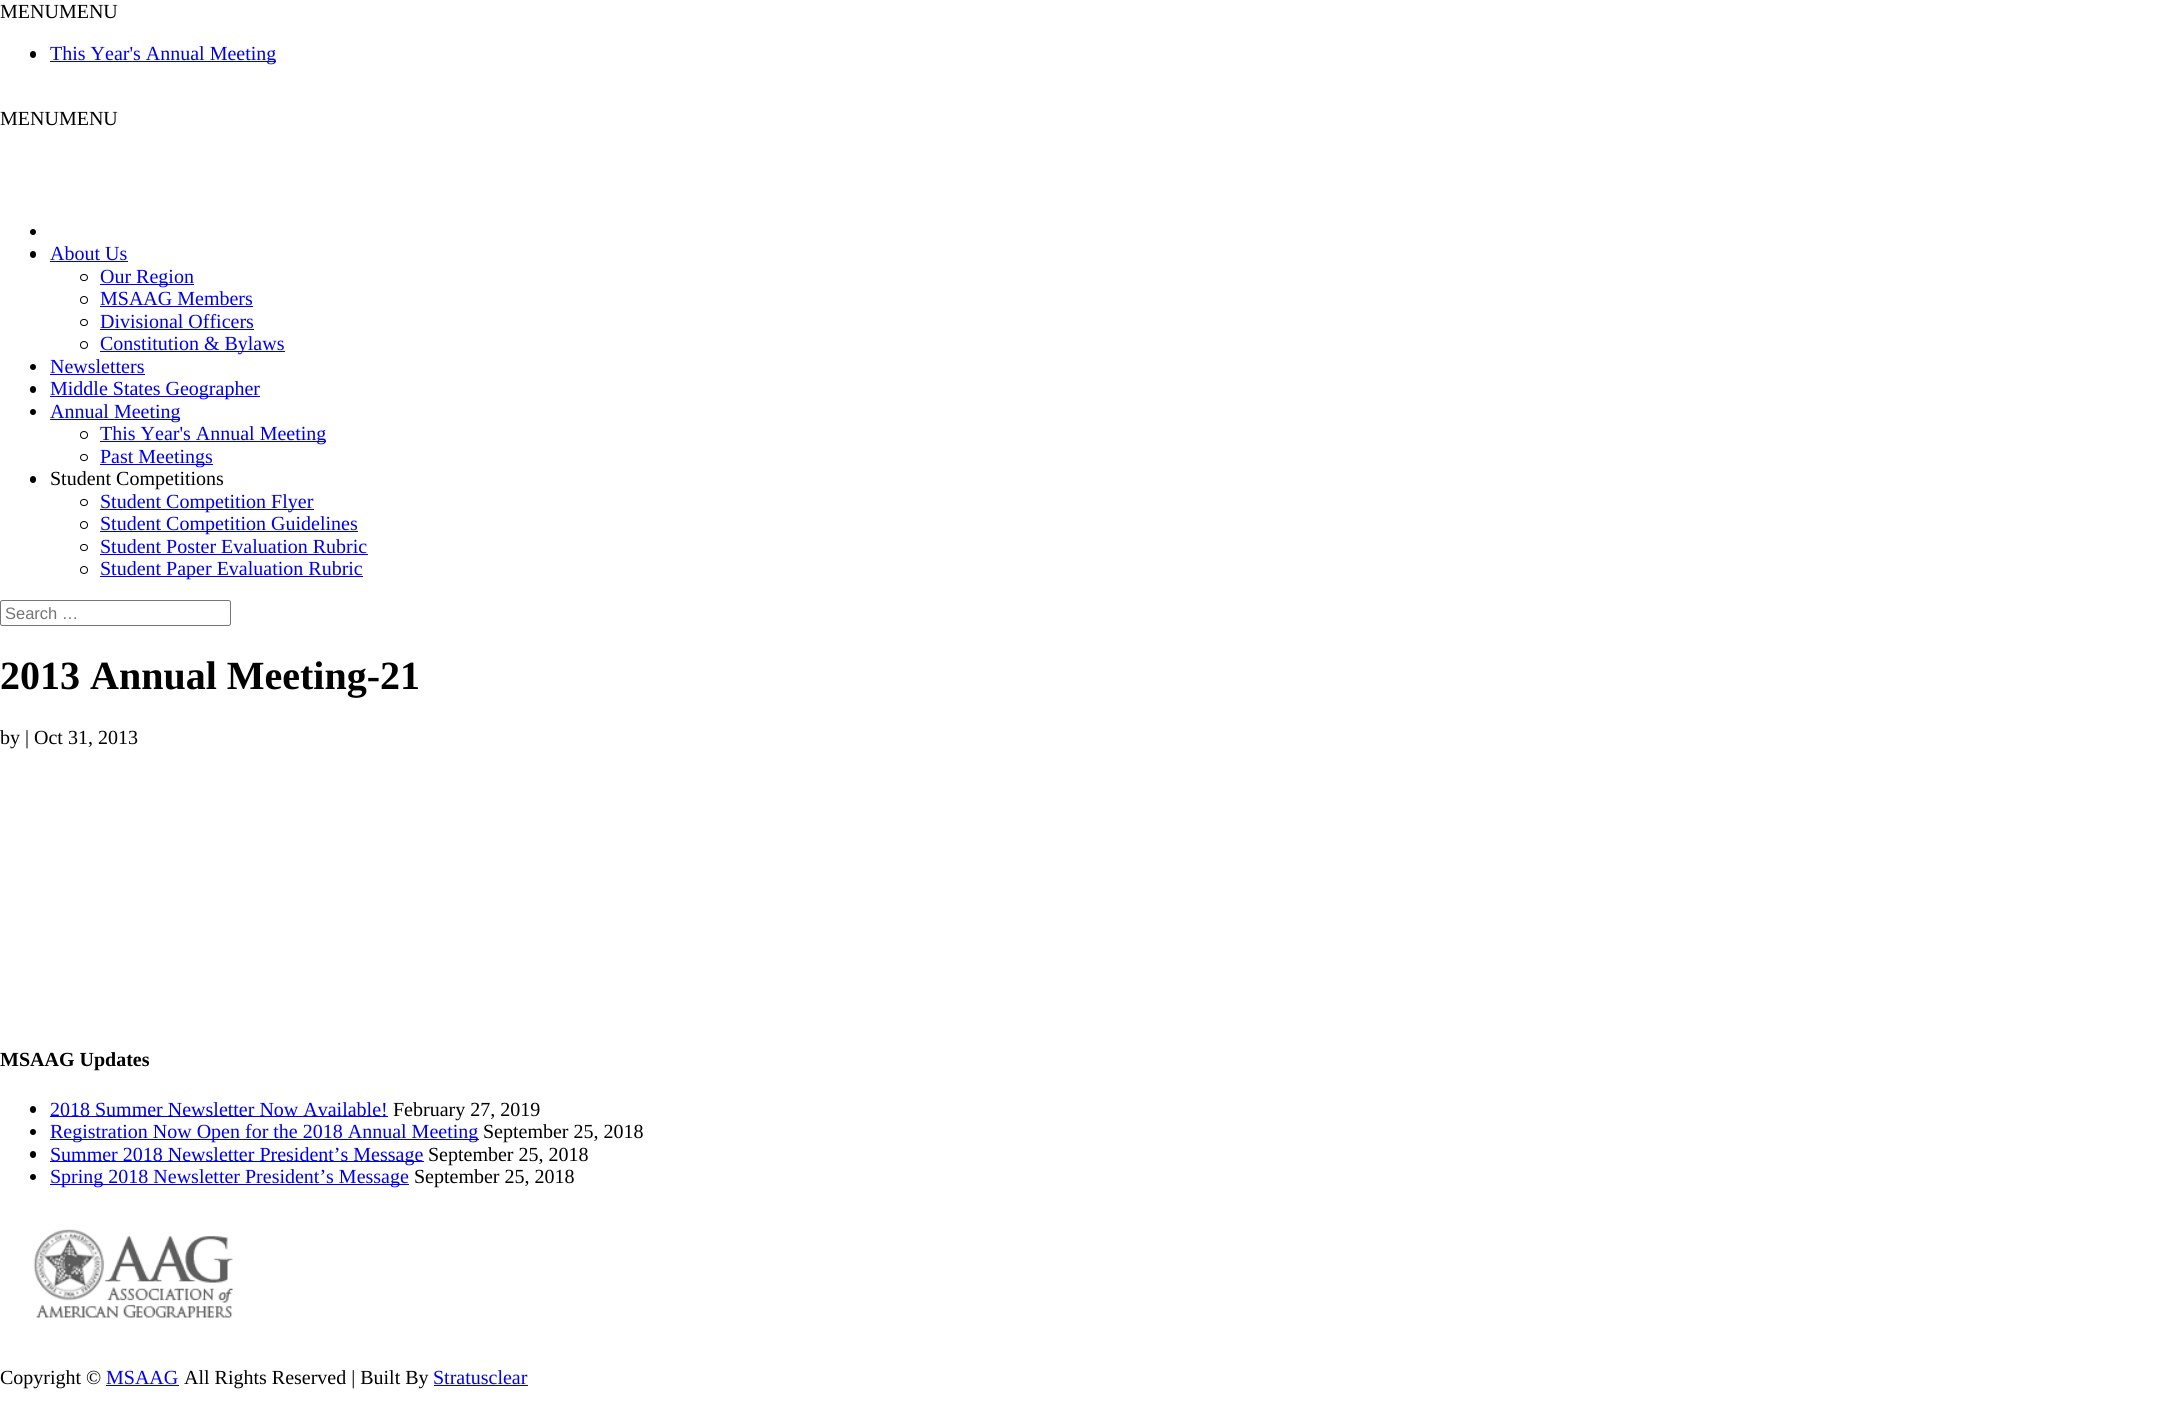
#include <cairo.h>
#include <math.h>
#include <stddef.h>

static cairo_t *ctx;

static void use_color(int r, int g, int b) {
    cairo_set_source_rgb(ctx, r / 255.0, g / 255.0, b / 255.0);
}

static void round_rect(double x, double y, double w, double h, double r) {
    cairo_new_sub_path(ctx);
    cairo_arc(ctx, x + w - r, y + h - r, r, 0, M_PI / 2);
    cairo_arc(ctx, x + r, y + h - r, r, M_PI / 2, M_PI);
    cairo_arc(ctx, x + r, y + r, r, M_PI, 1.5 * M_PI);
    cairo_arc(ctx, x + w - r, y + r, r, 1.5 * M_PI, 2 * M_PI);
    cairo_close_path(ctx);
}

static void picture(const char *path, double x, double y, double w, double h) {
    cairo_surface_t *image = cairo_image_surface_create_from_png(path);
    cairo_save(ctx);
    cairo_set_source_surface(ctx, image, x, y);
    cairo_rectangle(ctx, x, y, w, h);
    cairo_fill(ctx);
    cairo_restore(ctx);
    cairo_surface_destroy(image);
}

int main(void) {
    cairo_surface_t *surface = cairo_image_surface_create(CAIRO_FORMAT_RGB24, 2166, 1418);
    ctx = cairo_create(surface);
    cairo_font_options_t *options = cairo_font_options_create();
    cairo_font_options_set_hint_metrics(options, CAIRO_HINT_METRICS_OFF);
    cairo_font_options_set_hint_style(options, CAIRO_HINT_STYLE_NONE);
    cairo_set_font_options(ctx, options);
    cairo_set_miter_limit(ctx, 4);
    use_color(255, 255, 255);
    cairo_paint(ctx);
    cairo_select_font_face(ctx, "Liberation Serif", CAIRO_FONT_SLANT_NORMAL, CAIRO_FONT_WEIGHT_NORMAL);
    cairo_set_font_size(ctx, 20);
    use_color(0, 0, 0);
    cairo_move_to(ctx, 0, 18);
    cairo_show_text(ctx, "MENUMENU");
    round_rect(30, 51, 6, 7, 3);
    cairo_fill(ctx);
    use_color(0, 0, 238);
    cairo_rectangle(ctx, 50, 61, 226, 1);
    cairo_fill(ctx);
    cairo_move_to(ctx, 50, 60);
    cairo_show_text(ctx, "This Year's Annual Meeting");
    use_color(0, 0, 0);
    cairo_move_to(ctx, 0, 125);
    cairo_show_text(ctx, "MENUMENU");
    cairo_new_path(ctx);
    cairo_arc(ctx, 33, 232, 3, 0, 2 * M_PI);
    cairo_fill(ctx);
    round_rect(30, 251, 6, 7, 3);
    cairo_fill(ctx);
    use_color(0, 0, 238);
    cairo_move_to(ctx, 50, 260);
    cairo_show_text(ctx, "About Us");
    cairo_rectangle(ctx, 50, 261, 78, 1);
    cairo_fill(ctx);
    round_rect(80.5, 274.5, 7, 6, 3);
    use_color(0, 0, 0);
    cairo_set_line_width(ctx, 1);
    cairo_stroke(ctx);
    use_color(0, 0, 238);
    cairo_rectangle(ctx, 100, 284, 94, 1);
    cairo_fill(ctx);
    cairo_move_to(ctx, 100, 283);
    cairo_show_text(ctx, "Our Region");
    cairo_new_path(ctx);
    cairo_arc(ctx, 84, 300, 3.5, 0, 2 * M_PI);
    use_color(0, 0, 0);
    cairo_stroke(ctx);
    use_color(0, 0, 238);
    cairo_move_to(ctx, 100, 305);
    cairo_show_text(ctx, "MSAAG Members");
    cairo_rectangle(ctx, 100, 306, 153, 1);
    cairo_fill(ctx);
    round_rect(80.5, 319.5, 7, 6, 3);
    use_color(0, 0, 0);
    cairo_stroke(ctx);
    use_color(0, 0, 238);
    cairo_move_to(ctx, 100, 328);
    cairo_show_text(ctx, "Divisional Officers");
    cairo_rectangle(ctx, 100, 329, 154, 1);
    cairo_fill(ctx);
    cairo_arc(ctx, 84, 345, 3.5, 0, 2 * M_PI);
    use_color(0, 0, 0);
    cairo_stroke(ctx);
    use_color(0, 0, 238);
    cairo_rectangle(ctx, 100, 351, 185, 1);
    cairo_fill(ctx);
    cairo_move_to(ctx, 100, 350);
    cairo_show_text(ctx, "Constitution & Bylaws");
    use_color(0, 0, 0);
    cairo_new_path(ctx);
    cairo_arc(ctx, 33, 367, 3, 0, 2 * M_PI);
    cairo_fill(ctx);
    use_color(0, 0, 238);
    cairo_move_to(ctx, 50, 373);
    cairo_show_text(ctx, "Newsletters");
    cairo_rectangle(ctx, 50, 374, 95, 1);
    cairo_fill(ctx);
    use_color(0, 0, 0);
    round_rect(30, 386, 6, 7, 3);
    cairo_fill(ctx);
    use_color(0, 0, 238);
    cairo_rectangle(ctx, 50, 396, 210, 1);
    cairo_fill(ctx);
    cairo_move_to(ctx, 50, 395);
    cairo_show_text(ctx, "Middle States Geographer");
    use_color(0, 0, 0);
    cairo_new_path(ctx);
    cairo_arc(ctx, 33, 412, 3, 0, 2 * M_PI);
    cairo_fill(ctx);
    use_color(0, 0, 238);
    cairo_rectangle(ctx, 50, 419, 130, 1);
    cairo_fill(ctx);
    cairo_move_to(ctx, 50, 418);
    cairo_show_text(ctx, "Annual Meeting");
    cairo_new_path(ctx);
    cairo_arc(ctx, 84, 435, 3.5, 0, 2 * M_PI);
    use_color(0, 0, 0);
    cairo_stroke(ctx);
    use_color(0, 0, 238);
    cairo_rectangle(ctx, 100, 441, 226, 1);
    cairo_fill(ctx);
    cairo_move_to(ctx, 100, 440);
    cairo_show_text(ctx, "This Year's Annual Meeting");
    round_rect(80.5, 454.5, 7, 6, 3);
    use_color(0, 0, 0);
    cairo_stroke(ctx);
    use_color(0, 0, 238);
    cairo_rectangle(ctx, 100, 464, 113, 1);
    cairo_fill(ctx);
    cairo_move_to(ctx, 100, 463);
    cairo_show_text(ctx, "Past Meetings");
    use_color(0, 0, 0);
    round_rect(30, 476, 6, 7, 3);
    cairo_fill(ctx);
    cairo_move_to(ctx, 50, 485);
    cairo_show_text(ctx, "Student Competitions");
    round_rect(80.5, 499.5, 7, 6, 3);
    cairo_stroke(ctx);
    use_color(0, 0, 238);
    cairo_rectangle(ctx, 100, 509, 214, 1);
    cairo_fill(ctx);
    cairo_move_to(ctx, 100, 508);
    cairo_show_text(ctx, "Student Competition Flyer");
    cairo_new_path(ctx);
    cairo_arc(ctx, 84, 525, 3.5, 0, 2 * M_PI);
    use_color(0, 0, 0);
    cairo_stroke(ctx);
    use_color(0, 0, 238);
    cairo_rectangle(ctx, 100, 531, 258, 1);
    cairo_fill(ctx);
    cairo_move_to(ctx, 100, 530);
    cairo_show_text(ctx, "Student Competition Guidelines");
    round_rect(80.5, 544.5, 7, 6, 3);
    use_color(0, 0, 0);
    cairo_stroke(ctx);
    use_color(0, 0, 238);
    cairo_move_to(ctx, 100, 553);
    cairo_show_text(ctx, "Student Poster Evaluation Rubric");
    cairo_rectangle(ctx, 100, 554, 268, 1);
    cairo_fill(ctx);
    cairo_arc(ctx, 84, 570, 3.5, 0, 2 * M_PI);
    use_color(0, 0, 0);
    cairo_stroke(ctx);
    use_color(0, 0, 238);
    cairo_rectangle(ctx, 100, 576, 263, 1);
    cairo_fill(ctx);
    cairo_move_to(ctx, 100, 575);
    cairo_show_text(ctx, "Student Paper Evaluation Rubric");
    round_rect(0.5, 600.5, 230, 25, 2);
    use_color(118, 118, 118);
    cairo_stroke(ctx);
    cairo_select_font_face(ctx, "Liberation Sans", CAIRO_FONT_SLANT_NORMAL, CAIRO_FONT_WEIGHT_NORMAL);
    cairo_set_font_size(ctx, 16.5);
    use_color(117, 117, 117);
    cairo_move_to(ctx, 5, 619);
    cairo_show_text(ctx, "Search …");
    cairo_select_font_face(ctx, "Liberation Serif", CAIRO_FONT_SLANT_NORMAL, CAIRO_FONT_WEIGHT_BOLD);
    cairo_set_font_size(ctx, 40);
    use_color(0, 0, 0);
    cairo_move_to(ctx, 0, 689);
    cairo_show_text(ctx, "2013 Annual Meeting-21");
    cairo_select_font_face(ctx, "Liberation Serif", CAIRO_FONT_SLANT_NORMAL, CAIRO_FONT_WEIGHT_NORMAL);
    cairo_set_font_size(ctx, 20);
    cairo_move_to(ctx, 0, 744);
    cairo_show_text(ctx, "by | Oct 31, 2013");
    cairo_select_font_face(ctx, "Liberation Serif", CAIRO_FONT_SLANT_NORMAL, CAIRO_FONT_WEIGHT_BOLD);
    cairo_move_to(ctx, 0, 1066);
    cairo_show_text(ctx, "MSAAG Updates");
    round_rect(30, 1106, 6, 7, 3);
    cairo_fill(ctx);
    use_color(0, 0, 238);
    cairo_rectangle(ctx, 50, 1116, 338, 1);
    cairo_fill(ctx);
    cairo_select_font_face(ctx, "Liberation Serif", CAIRO_FONT_SLANT_NORMAL, CAIRO_FONT_WEIGHT_NORMAL);
    cairo_move_to(ctx, 50, 1116);
    cairo_show_text(ctx, "2018 Summer Newsletter Now Available!");
    use_color(0, 0, 0);
    cairo_move_to(ctx, 393, 1116);
    cairo_show_text(ctx, "February 27, 2019");
    cairo_new_path(ctx);
    cairo_arc(ctx, 33, 1132, 3, 0, 2 * M_PI);
    cairo_fill(ctx);
    use_color(0, 0, 238);
    cairo_rectangle(ctx, 50, 1139, 429, 1);
    cairo_fill(ctx);
    cairo_move_to(ctx, 50, 1138);
    cairo_show_text(ctx, "Registration Now Open for the 2018 Annual Meeting");
    use_color(0, 0, 0);
    cairo_move_to(ctx, 483, 1138);
    cairo_show_text(ctx, "September 25, 2018");
    round_rect(30, 1151, 6, 7, 3);
    cairo_fill(ctx);
    use_color(0, 0, 238);
    cairo_rectangle(ctx, 50, 1161, 374, 1);
    cairo_fill(ctx);
    cairo_move_to(ctx, 50, 1161);
    cairo_show_text(ctx, "Summer 2018 Newsletter President’s Message");
    use_color(0, 0, 0);
    cairo_move_to(ctx, 428, 1161);
    cairo_show_text(ctx, "September 25, 2018");
    cairo_new_path(ctx);
    cairo_arc(ctx, 33, 1177, 3, 0, 2 * M_PI);
    cairo_fill(ctx);
    use_color(0, 0, 238);
    cairo_rectangle(ctx, 50, 1184, 359, 1);
    cairo_fill(ctx);
    cairo_move_to(ctx, 50, 1183);
    cairo_show_text(ctx, "Spring 2018 Newsletter President’s Message");
    use_color(0, 0, 0);
    cairo_move_to(ctx, 414, 1183);
    cairo_show_text(ctx, "September 25, 2018");
    picture("img1.png", 33, 1229, 200, 89);
    cairo_move_to(ctx, 0, 1384);
    cairo_show_text(ctx, "Copyright ©");
    use_color(0, 0, 238);
    cairo_move_to(ctx, 106, 1384);
    cairo_show_text(ctx, "MSAAG");
    cairo_rectangle(ctx, 106, 1385, 73, 1);
    cairo_fill(ctx);
    use_color(0, 0, 0);
    cairo_move_to(ctx, 184, 1384);
    cairo_show_text(ctx, "All Rights Reserved | Built By");
    use_color(0, 0, 238);
    cairo_move_to(ctx, 433, 1384);
    cairo_show_text(ctx, "Stratusclear");
    cairo_rectangle(ctx, 434, 1385, 94, 1);
    cairo_fill(ctx);
    cairo_surface_write_to_png(surface, "result.png");
    cairo_font_options_destroy(options);
    cairo_destroy(ctx);
    cairo_surface_destroy(surface);
    return 0;
}
